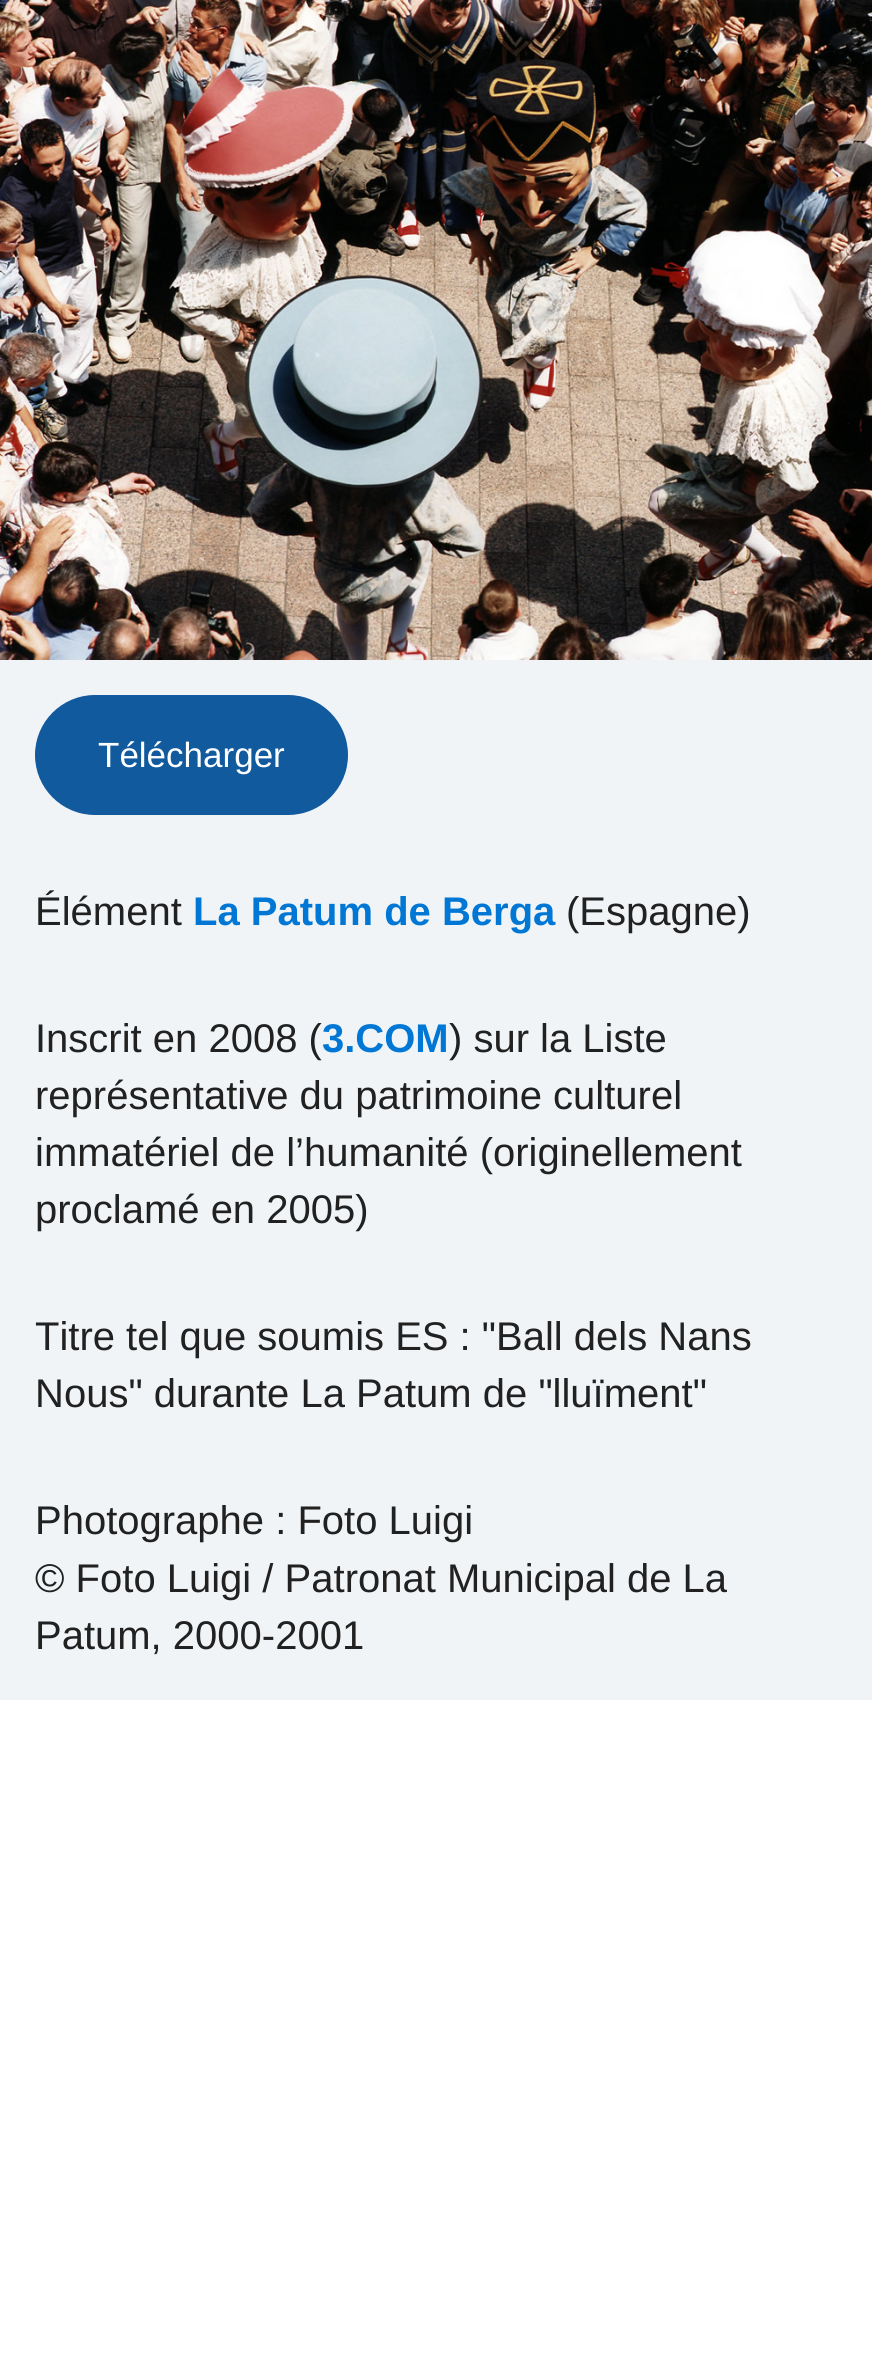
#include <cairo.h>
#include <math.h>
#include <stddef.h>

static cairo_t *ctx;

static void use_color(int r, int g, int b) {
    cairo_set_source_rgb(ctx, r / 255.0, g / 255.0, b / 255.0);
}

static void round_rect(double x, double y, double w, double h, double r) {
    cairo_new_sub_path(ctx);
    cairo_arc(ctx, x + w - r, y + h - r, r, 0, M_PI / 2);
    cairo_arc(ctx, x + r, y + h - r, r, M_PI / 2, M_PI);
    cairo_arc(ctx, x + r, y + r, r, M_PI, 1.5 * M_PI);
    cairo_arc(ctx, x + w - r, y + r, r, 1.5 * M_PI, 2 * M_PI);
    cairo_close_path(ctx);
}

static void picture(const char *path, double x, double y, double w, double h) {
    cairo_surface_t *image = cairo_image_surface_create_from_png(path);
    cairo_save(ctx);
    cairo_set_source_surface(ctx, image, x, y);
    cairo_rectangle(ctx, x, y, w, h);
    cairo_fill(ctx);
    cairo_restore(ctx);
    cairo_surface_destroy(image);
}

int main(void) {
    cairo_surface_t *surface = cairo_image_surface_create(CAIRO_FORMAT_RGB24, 872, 2357);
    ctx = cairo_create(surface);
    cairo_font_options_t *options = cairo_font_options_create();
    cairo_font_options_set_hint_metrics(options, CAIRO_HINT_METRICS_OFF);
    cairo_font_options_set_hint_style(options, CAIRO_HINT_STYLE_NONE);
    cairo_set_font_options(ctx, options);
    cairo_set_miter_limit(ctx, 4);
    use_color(255, 255, 255);
    cairo_paint(ctx);
    use_color(241, 244, 246);
    cairo_rectangle(ctx, 0, 660, 872, 1040);
    cairo_fill(ctx);
    picture("img1.png", 0, 0, 872, 660);
    use_color(17, 90, 158);
    round_rect(35, 695, 313, 120, 60);
    cairo_fill(ctx);
    cairo_select_font_face(ctx, "Liberation Sans", CAIRO_FONT_SLANT_NORMAL, CAIRO_FONT_WEIGHT_NORMAL);
    cairo_set_font_size(ctx, 35);
    use_color(255, 255, 255);
    cairo_move_to(ctx, 98, 767);
    cairo_show_text(ctx, "Télécharger");
    cairo_set_font_size(ctx, 40);
    use_color(33, 33, 33);
    cairo_move_to(ctx, 35, 925);
    cairo_show_text(ctx, "Élément");
    cairo_select_font_face(ctx, "Liberation Sans", CAIRO_FONT_SLANT_NORMAL, CAIRO_FONT_WEIGHT_BOLD);
    use_color(0, 119, 212);
    cairo_move_to(ctx, 193, 925);
    cairo_show_text(ctx, "La Patum de Berga");
    cairo_select_font_face(ctx, "Liberation Sans", CAIRO_FONT_SLANT_NORMAL, CAIRO_FONT_WEIGHT_NORMAL);
    use_color(33, 33, 33);
    cairo_move_to(ctx, 566, 925);
    cairo_show_text(ctx, "(Espagne)");
    cairo_move_to(ctx, 35, 1052);
    cairo_show_text(ctx, "Inscrit en 2008 (");
    cairo_select_font_face(ctx, "Liberation Sans", CAIRO_FONT_SLANT_NORMAL, CAIRO_FONT_WEIGHT_BOLD);
    use_color(0, 119, 212);
    cairo_move_to(ctx, 322, 1052);
    cairo_show_text(ctx, "3.COM");
    cairo_select_font_face(ctx, "Liberation Sans", CAIRO_FONT_SLANT_NORMAL, CAIRO_FONT_WEIGHT_NORMAL);
    use_color(33, 33, 33);
    cairo_move_to(ctx, 449, 1052);
    cairo_show_text(ctx, ") sur la Liste");
    cairo_move_to(ctx, 35, 1109);
    cairo_show_text(ctx, "représentative du patrimoine culturel");
    cairo_move_to(ctx, 35, 1166);
    cairo_show_text(ctx, "immatériel de l’humanité (originellement");
    cairo_move_to(ctx, 35, 1223);
    cairo_show_text(ctx, "proclamé en 2005)");
    cairo_move_to(ctx, 35, 1350);
    cairo_show_text(ctx, "Titre tel que soumis ES : \"Ball dels Nans");
    cairo_move_to(ctx, 35, 1407);
    cairo_show_text(ctx, "Nous\" durante La Patum de \"lluïment\"");
    cairo_move_to(ctx, 35, 1534);
    cairo_show_text(ctx, "Photographe : Foto Luigi");
    cairo_move_to(ctx, 35, 1592);
    cairo_show_text(ctx, "© Foto Luigi / Patronat Municipal de La");
    cairo_move_to(ctx, 35, 1649);
    cairo_show_text(ctx, "Patum, 2000-2001");
    cairo_surface_write_to_png(surface, "result.png");
    cairo_font_options_destroy(options);
    cairo_destroy(ctx);
    cairo_surface_destroy(surface);
    return 0;
}
